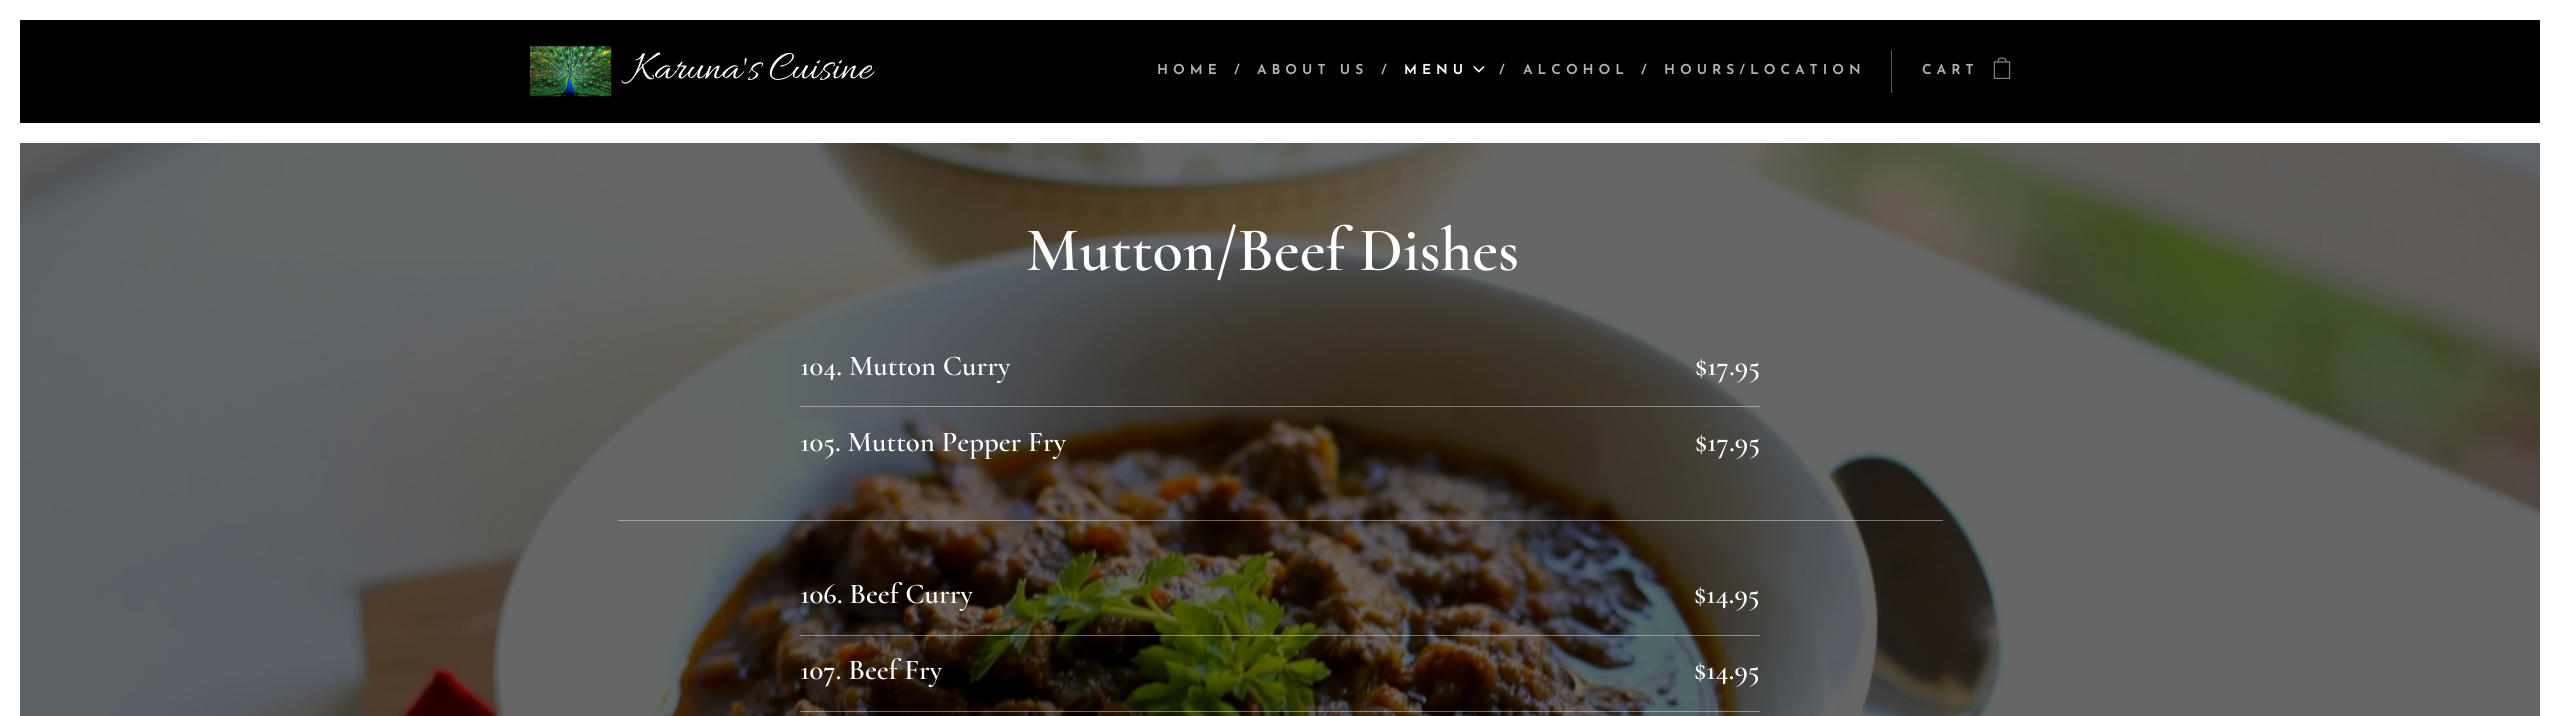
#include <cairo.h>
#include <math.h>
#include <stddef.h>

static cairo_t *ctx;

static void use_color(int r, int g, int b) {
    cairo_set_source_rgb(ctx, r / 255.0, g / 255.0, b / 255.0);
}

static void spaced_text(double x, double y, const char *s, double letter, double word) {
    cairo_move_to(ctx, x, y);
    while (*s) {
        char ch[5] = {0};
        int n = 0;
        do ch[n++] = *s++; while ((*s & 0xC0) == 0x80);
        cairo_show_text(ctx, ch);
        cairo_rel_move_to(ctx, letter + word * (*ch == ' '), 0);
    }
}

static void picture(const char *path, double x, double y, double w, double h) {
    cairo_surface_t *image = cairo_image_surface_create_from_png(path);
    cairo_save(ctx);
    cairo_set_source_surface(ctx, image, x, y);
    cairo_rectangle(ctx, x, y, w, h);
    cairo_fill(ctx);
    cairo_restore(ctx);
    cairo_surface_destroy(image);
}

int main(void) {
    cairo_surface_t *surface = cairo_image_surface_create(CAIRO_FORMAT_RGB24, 2559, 716);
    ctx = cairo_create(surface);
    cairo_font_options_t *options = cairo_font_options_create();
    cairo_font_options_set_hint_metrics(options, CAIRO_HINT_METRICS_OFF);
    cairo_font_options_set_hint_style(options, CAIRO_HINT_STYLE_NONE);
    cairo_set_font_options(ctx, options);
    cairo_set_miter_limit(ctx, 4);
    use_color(255, 255, 255);
    cairo_paint(ctx);
    use_color(0, 0, 0);
    cairo_rectangle(ctx, 20, 20, 2520, 103);
    cairo_fill(ctx);
    picture("img1.png", 530, 46, 82, 51);
    cairo_select_font_face(ctx, "Allura", CAIRO_FONT_SLANT_NORMAL, CAIRO_FONT_WEIGHT_NORMAL);
    cairo_set_font_size(ctx, 42);
    use_color(255, 255, 255);
    cairo_move_to(ctx, 631, 78);
    cairo_show_text(ctx, "Karuna's Cuisine");
    cairo_select_font_face(ctx, "Josefin Sans SemiBold", CAIRO_FONT_SLANT_NORMAL, CAIRO_FONT_WEIGHT_NORMAL);
    cairo_set_font_size(ctx, 13.75);
    use_color(179, 179, 179);
    spaced_text(1157, 74, "HOME", 5, 0);
    spaced_text(1234, 74, "/", 5, 0);
    spaced_text(1257, 74, "ABOUT US", 5, 0);
    spaced_text(1381, 74, "/", 5, 0);
    use_color(255, 255, 255);
    spaced_text(1404, 74, "MENU", 5, 0);
    use_color(179, 179, 179);
    spaced_text(1499, 74, "/", 5, 0);
    picture("img2.png", 1473, 66, 12, 7);
    spaced_text(1523, 74, "ALCOHOL", 5, 0);
    spaced_text(1641, 74, "/", 5, 0);
    spaced_text(1664, 74, "HOURS/LOCATION", 5, 0);
    use_color(89, 89, 89);
    cairo_rectangle(ctx, 1891, 50, 1, 43);
    cairo_fill(ctx);
    use_color(179, 179, 179);
    spaced_text(1922, 74, "CART", 5, 0);
    picture("img3.png", 1993, 57, 18, 22);
    picture("img4.png", 20, 143, 2520, 573);
    cairo_select_font_face(ctx, "Cormorant SemiBold", CAIRO_FONT_SLANT_NORMAL, CAIRO_FONT_WEIGHT_NORMAL);
    cairo_set_font_size(ctx, 62.5);
    use_color(255, 255, 255);
    cairo_move_to(ctx, 1026, 270);
    cairo_show_text(ctx, "Mutton/Beef Dishes");
    cairo_set_source_rgba(ctx, 1, 1, 1, 0.4);
    cairo_rectangle(ctx, 800, 406, 960, 1);
    cairo_fill(ctx);
    cairo_set_font_size(ctx, 28.75);
    use_color(255, 255, 255);
    cairo_move_to(ctx, 800, 375);
    cairo_show_text(ctx, "104. Mutton Curry");
    cairo_move_to(ctx, 1695, 375);
    cairo_show_text(ctx, "$17.95");
    cairo_move_to(ctx, 800, 451);
    cairo_show_text(ctx, "105. Mutton Pepper Fry");
    cairo_move_to(ctx, 1695, 451);
    cairo_show_text(ctx, "$17.95");
    cairo_set_source_rgba(ctx, 1, 1, 1, 0.4);
    cairo_rectangle(ctx, 618, 520, 1325, 1);
    cairo_fill(ctx);
    cairo_rectangle(ctx, 800, 635, 960, 1);
    cairo_fill(ctx);
    use_color(255, 255, 255);
    cairo_move_to(ctx, 800, 603);
    cairo_show_text(ctx, "106. Beef Curry");
    cairo_move_to(ctx, 1694, 603);
    cairo_show_text(ctx, "$14.95");
    cairo_set_source_rgba(ctx, 1, 1, 1, 0.4);
    cairo_rectangle(ctx, 800, 711, 960, 1);
    cairo_fill(ctx);
    use_color(255, 255, 255);
    cairo_move_to(ctx, 800, 679);
    cairo_show_text(ctx, "107. Beef Fry");
    cairo_move_to(ctx, 1694, 679);
    cairo_show_text(ctx, "$14.95");
    cairo_surface_write_to_png(surface, "result.png");
    cairo_font_options_destroy(options);
    cairo_destroy(ctx);
    cairo_surface_destroy(surface);
    return 0;
}
